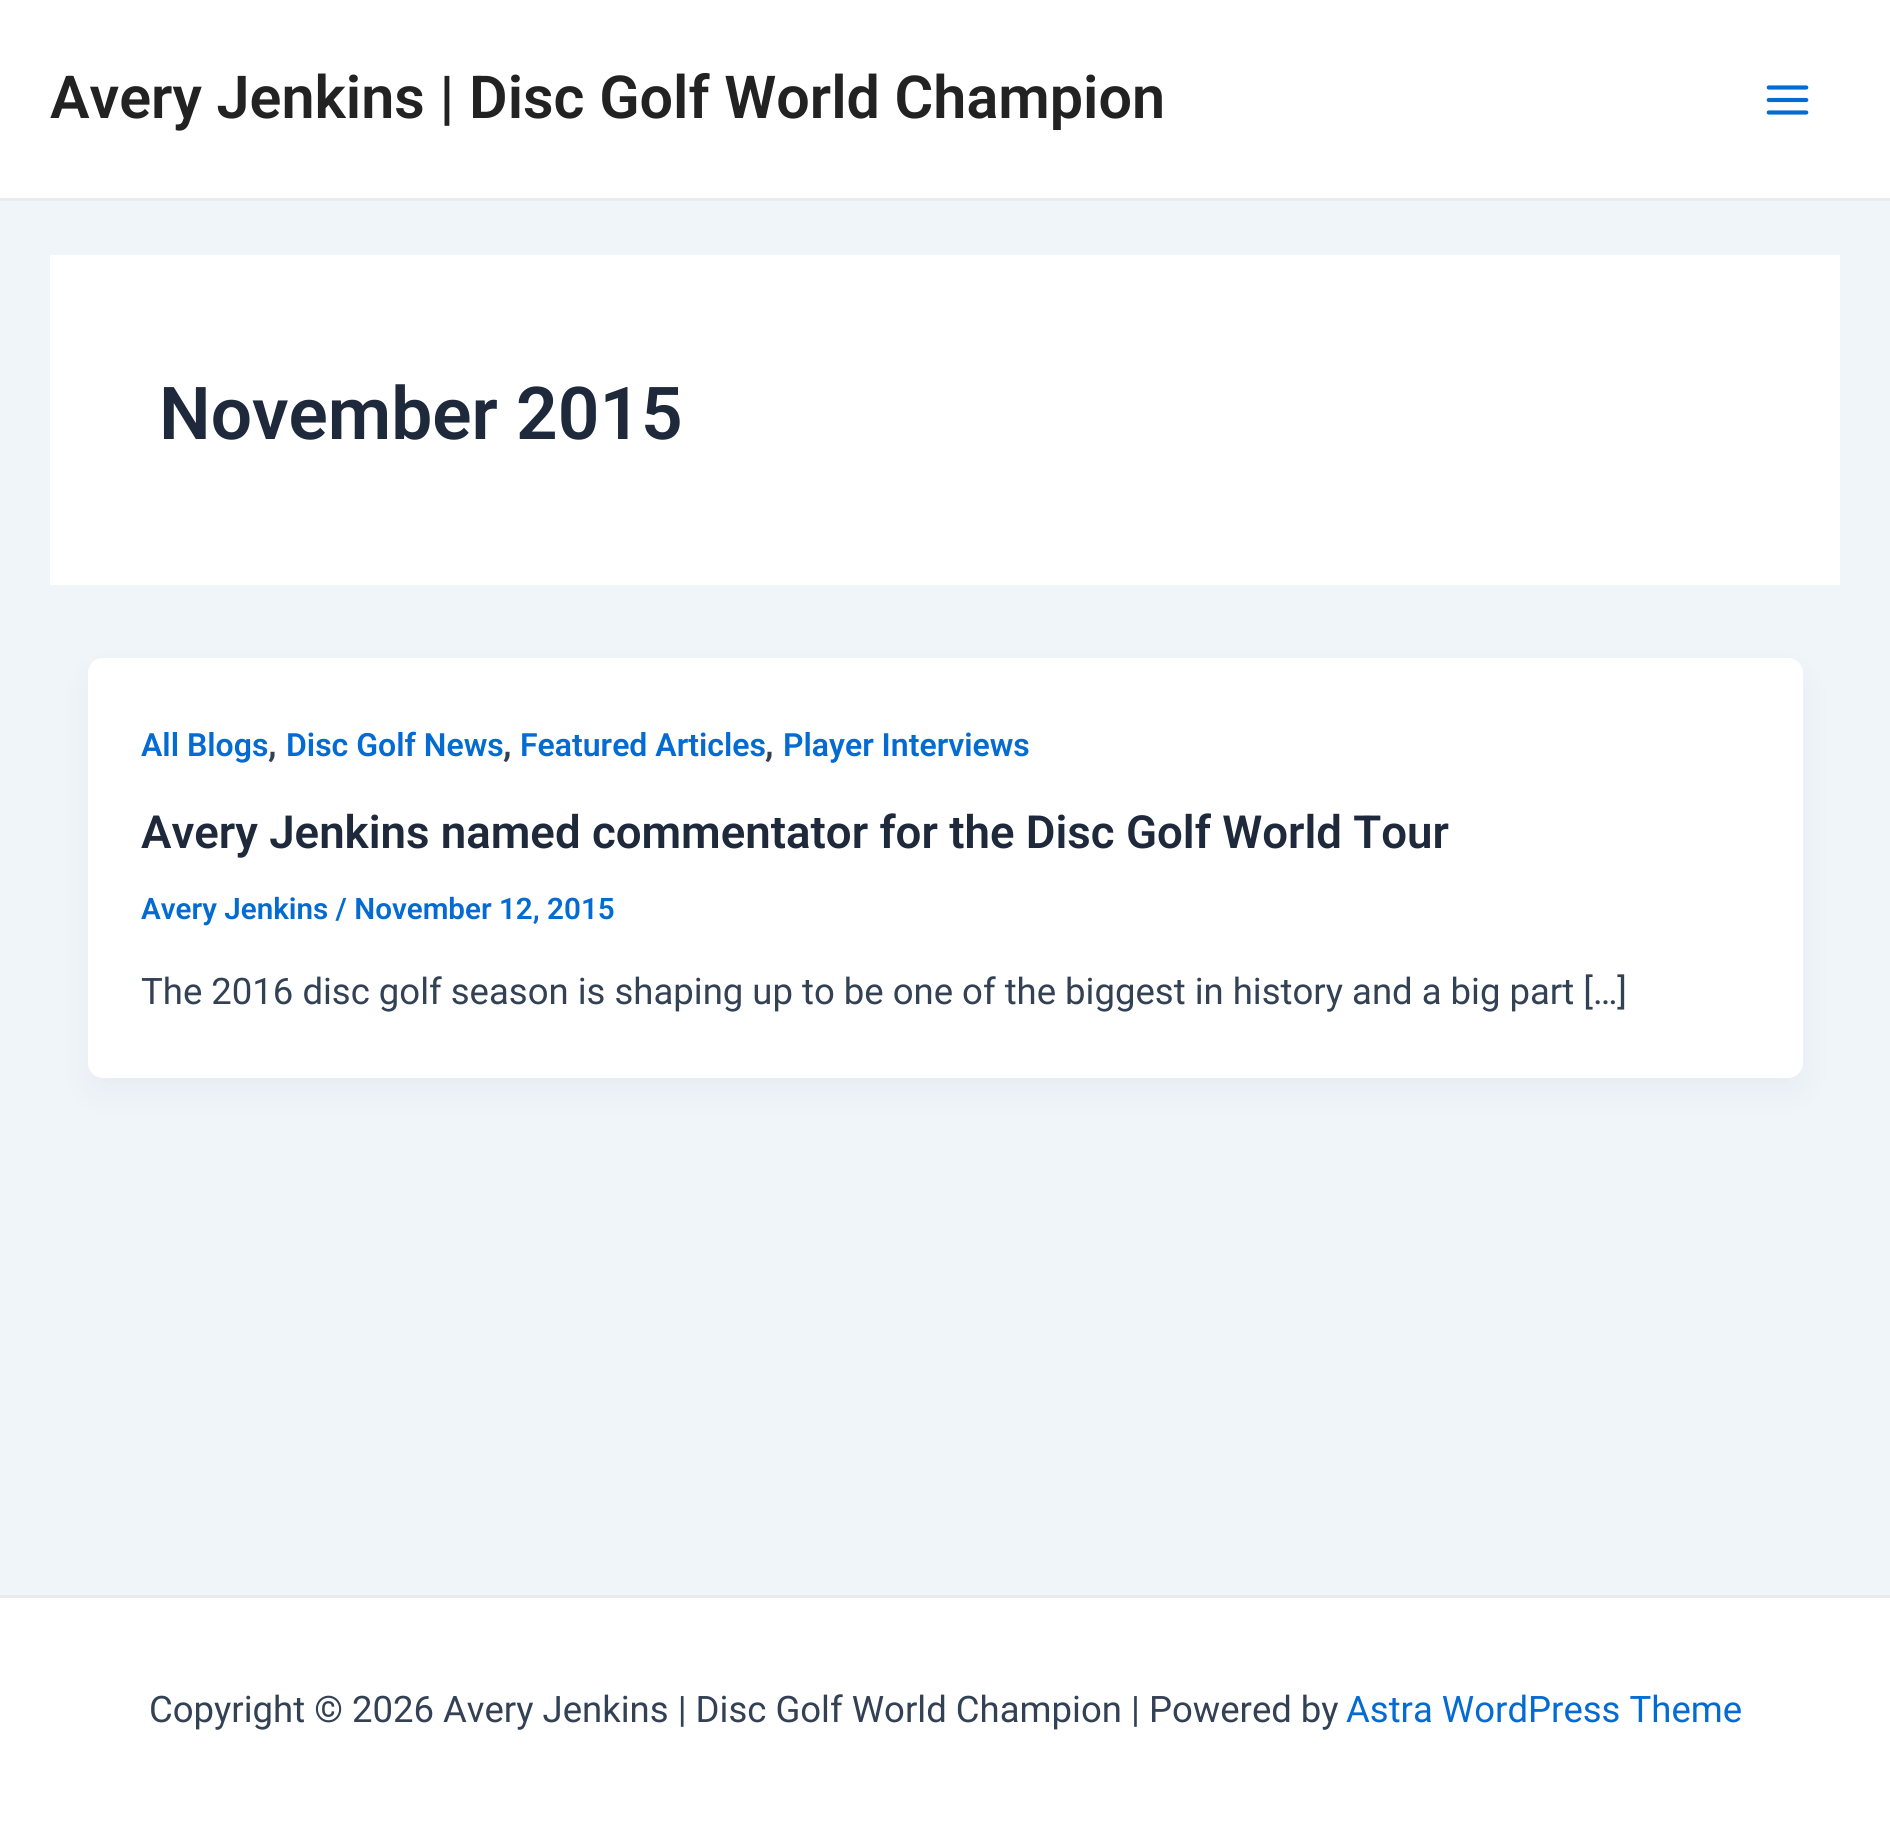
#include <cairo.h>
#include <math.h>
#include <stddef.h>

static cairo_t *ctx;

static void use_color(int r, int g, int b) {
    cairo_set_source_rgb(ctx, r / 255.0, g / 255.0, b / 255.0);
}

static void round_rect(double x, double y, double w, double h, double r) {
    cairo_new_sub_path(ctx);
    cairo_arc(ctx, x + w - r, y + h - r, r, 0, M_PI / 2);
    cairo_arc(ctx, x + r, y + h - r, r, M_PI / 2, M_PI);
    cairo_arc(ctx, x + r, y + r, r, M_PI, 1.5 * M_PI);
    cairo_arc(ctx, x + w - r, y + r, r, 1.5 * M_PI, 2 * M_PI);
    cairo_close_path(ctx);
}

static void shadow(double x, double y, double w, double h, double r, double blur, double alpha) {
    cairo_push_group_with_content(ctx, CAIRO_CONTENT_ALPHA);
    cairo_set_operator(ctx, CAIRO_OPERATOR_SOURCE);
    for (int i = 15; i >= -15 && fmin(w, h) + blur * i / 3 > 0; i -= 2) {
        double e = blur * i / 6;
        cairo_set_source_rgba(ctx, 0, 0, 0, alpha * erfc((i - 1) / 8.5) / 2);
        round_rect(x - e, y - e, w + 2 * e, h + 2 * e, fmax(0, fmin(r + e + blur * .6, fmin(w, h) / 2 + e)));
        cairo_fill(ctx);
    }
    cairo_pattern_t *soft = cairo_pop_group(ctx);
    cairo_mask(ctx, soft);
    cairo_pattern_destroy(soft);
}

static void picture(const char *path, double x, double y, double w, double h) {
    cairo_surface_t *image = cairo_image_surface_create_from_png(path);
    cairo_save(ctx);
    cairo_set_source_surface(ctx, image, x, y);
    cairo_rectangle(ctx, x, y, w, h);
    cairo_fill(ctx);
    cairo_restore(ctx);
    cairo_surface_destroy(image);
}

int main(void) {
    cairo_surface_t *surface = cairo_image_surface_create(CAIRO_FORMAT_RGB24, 1890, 1846);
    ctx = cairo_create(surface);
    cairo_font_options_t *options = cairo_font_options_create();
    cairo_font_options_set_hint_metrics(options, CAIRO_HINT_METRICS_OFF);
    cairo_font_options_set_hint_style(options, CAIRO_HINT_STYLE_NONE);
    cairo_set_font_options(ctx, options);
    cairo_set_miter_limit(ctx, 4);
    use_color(240, 245, 250);
    cairo_paint(ctx);
    use_color(255, 255, 255);
    cairo_rectangle(ctx, 0, 0, 1890, 198);
    cairo_fill(ctx);
    use_color(234, 234, 234);
    cairo_rectangle(ctx, 0, 198, 1890, 3);
    cairo_fill(ctx);
    cairo_select_font_face(ctx, "Roboto SemiBold", CAIRO_FONT_SLANT_NORMAL, CAIRO_FONT_WEIGHT_NORMAL);
    cairo_set_font_size(ctx, 59.25);
    use_color(34, 34, 34);
    cairo_move_to(ctx, 50, 118);
    cairo_show_text(ctx, "Avery Jenkins | Disc Golf World Champion");
    picture("img1.png", 1766, 85, 43, 30);
    use_color(255, 255, 255);
    cairo_rectangle(ctx, 50, 255, 1790, 330);
    cairo_fill(ctx);
    cairo_set_font_size(ctx, 73);
    use_color(30, 41, 59);
    cairo_move_to(ctx, 159, 439);
    cairo_show_text(ctx, "November 2015");
    use_color(16, 24, 40);
    shadow(93, 678, 1705, 410, 10, 19, 0.05);
    use_color(255, 255, 255);
    round_rect(88, 658, 1715, 420, 15);
    cairo_fill(ctx);
    cairo_set_font_size(ctx, 32);
    use_color(4, 107, 210);
    cairo_move_to(ctx, 141, 756);
    cairo_show_text(ctx, "All Blogs");
    cairo_set_font_size(ctx, 36.5);
    use_color(51, 65, 85);
    cairo_move_to(ctx, 268, 756);
    cairo_show_text(ctx, ",");
    cairo_set_font_size(ctx, 32);
    use_color(4, 107, 210);
    cairo_move_to(ctx, 286, 756);
    cairo_show_text(ctx, "Disc Golf News");
    cairo_set_font_size(ctx, 36.5);
    use_color(51, 65, 85);
    cairo_move_to(ctx, 503, 756);
    cairo_show_text(ctx, ",");
    cairo_set_font_size(ctx, 32);
    use_color(4, 107, 210);
    cairo_move_to(ctx, 520, 756);
    cairo_show_text(ctx, "Featured Articles");
    cairo_set_font_size(ctx, 36.5);
    use_color(51, 65, 85);
    cairo_move_to(ctx, 765, 756);
    cairo_show_text(ctx, ",");
    cairo_set_font_size(ctx, 32);
    use_color(4, 107, 210);
    cairo_move_to(ctx, 783, 756);
    cairo_show_text(ctx, "Player Interviews");
    cairo_set_font_size(ctx, 45.6);
    use_color(30, 41, 59);
    cairo_move_to(ctx, 141, 848);
    cairo_show_text(ctx, "Avery Jenkins named commentator for the Disc Golf World Tour");
    cairo_set_font_size(ctx, 29.6);
    use_color(4, 107, 210);
    cairo_move_to(ctx, 141, 919);
    cairo_show_text(ctx, "Avery Jenkins / November 12, 2015");
    cairo_select_font_face(ctx, "Roboto", CAIRO_FONT_SLANT_NORMAL, CAIRO_FONT_WEIGHT_NORMAL);
    cairo_set_font_size(ctx, 36.5);
    use_color(51, 65, 85);
    cairo_move_to(ctx, 141, 1004);
    cairo_show_text(ctx, "The 2016 disc golf season is shaping up to be one of the biggest in history and a big part […]");
    use_color(255, 255, 255);
    cairo_rectangle(ctx, 0, 1598, 1890, 248);
    cairo_fill(ctx);
    use_color(234, 234, 234);
    cairo_rectangle(ctx, 0, 1595, 1890, 3);
    cairo_fill(ctx);
    use_color(51, 65, 85);
    cairo_move_to(ctx, 149, 1722);
    cairo_show_text(ctx, "Copyright © 2026 Avery Jenkins | Disc Golf World Champion | Powered by");
    use_color(4, 107, 210);
    cairo_move_to(ctx, 1346, 1722);
    cairo_show_text(ctx, "Astra WordPress Theme");
    cairo_surface_write_to_png(surface, "result.png");
    cairo_font_options_destroy(options);
    cairo_destroy(ctx);
    cairo_surface_destroy(surface);
    return 0;
}
